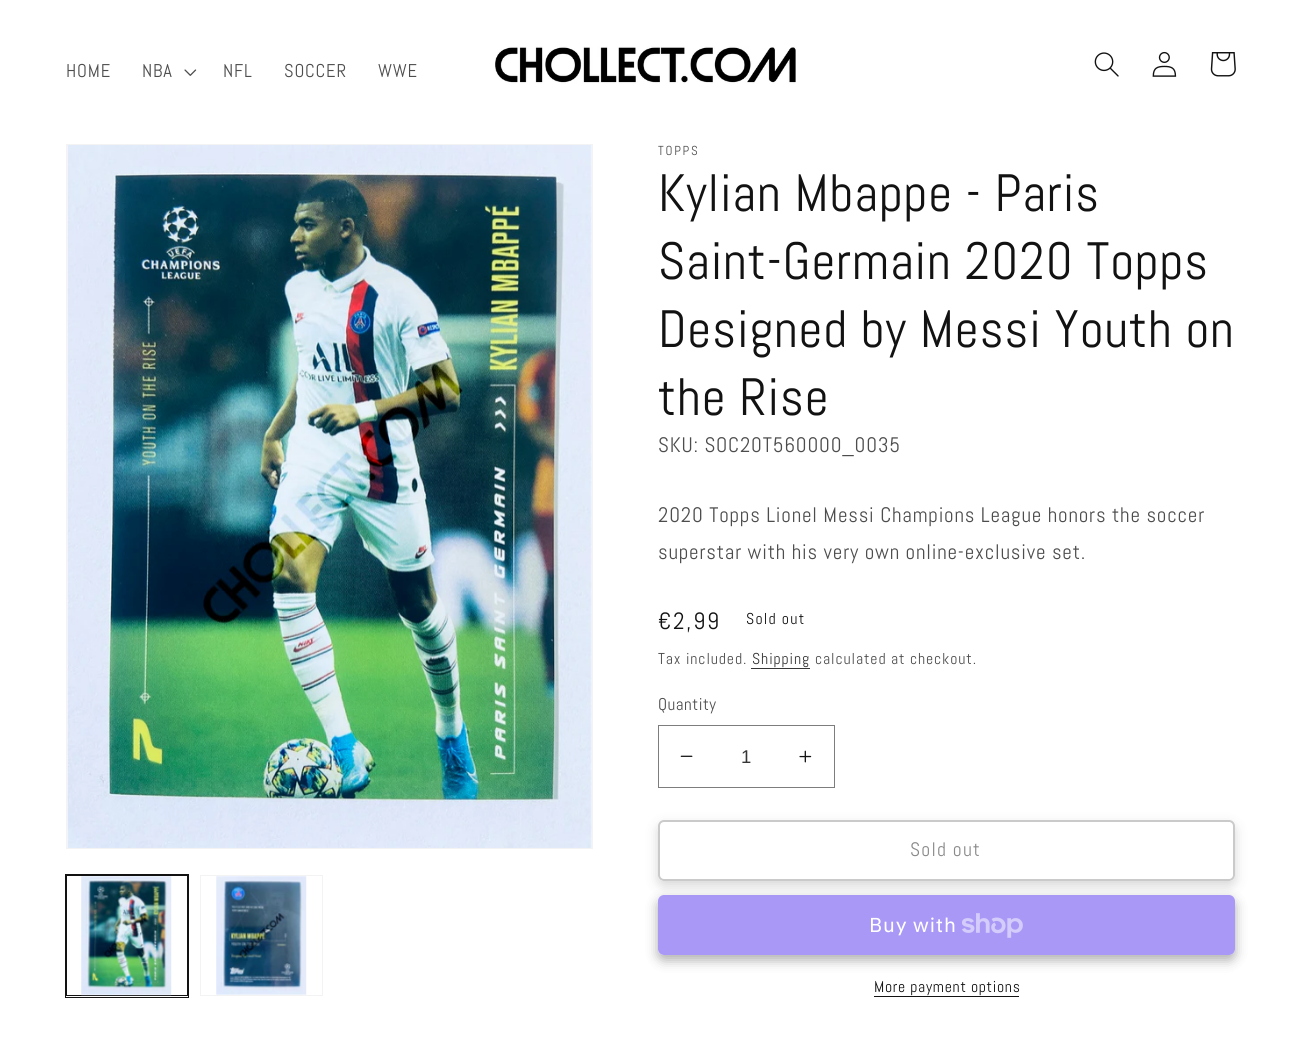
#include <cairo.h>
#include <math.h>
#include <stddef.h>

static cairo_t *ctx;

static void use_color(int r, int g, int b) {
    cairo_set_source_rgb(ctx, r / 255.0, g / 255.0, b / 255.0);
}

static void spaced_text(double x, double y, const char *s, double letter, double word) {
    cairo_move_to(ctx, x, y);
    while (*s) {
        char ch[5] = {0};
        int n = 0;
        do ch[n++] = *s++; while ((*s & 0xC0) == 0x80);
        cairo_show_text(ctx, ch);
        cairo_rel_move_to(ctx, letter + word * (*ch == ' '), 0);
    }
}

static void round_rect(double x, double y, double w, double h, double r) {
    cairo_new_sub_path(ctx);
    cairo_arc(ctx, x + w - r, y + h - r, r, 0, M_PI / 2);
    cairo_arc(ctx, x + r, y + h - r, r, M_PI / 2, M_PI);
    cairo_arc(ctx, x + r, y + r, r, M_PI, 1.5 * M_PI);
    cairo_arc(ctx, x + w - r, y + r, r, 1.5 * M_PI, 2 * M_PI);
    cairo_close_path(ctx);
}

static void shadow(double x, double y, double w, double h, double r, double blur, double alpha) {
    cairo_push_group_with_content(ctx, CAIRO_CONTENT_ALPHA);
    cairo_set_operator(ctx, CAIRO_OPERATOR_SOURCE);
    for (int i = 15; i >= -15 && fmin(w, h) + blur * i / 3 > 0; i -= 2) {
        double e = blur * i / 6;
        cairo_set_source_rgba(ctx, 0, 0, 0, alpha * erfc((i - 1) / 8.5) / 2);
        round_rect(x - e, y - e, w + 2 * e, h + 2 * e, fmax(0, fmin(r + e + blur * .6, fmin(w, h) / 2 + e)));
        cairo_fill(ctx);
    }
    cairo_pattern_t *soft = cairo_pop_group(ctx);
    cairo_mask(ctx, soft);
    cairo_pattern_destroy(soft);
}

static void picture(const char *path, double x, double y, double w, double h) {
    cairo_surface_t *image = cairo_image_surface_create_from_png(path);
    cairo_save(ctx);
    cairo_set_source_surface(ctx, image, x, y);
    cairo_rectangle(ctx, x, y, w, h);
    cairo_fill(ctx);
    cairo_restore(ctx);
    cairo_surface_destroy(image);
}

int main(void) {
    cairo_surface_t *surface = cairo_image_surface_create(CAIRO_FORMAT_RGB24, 1301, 1053);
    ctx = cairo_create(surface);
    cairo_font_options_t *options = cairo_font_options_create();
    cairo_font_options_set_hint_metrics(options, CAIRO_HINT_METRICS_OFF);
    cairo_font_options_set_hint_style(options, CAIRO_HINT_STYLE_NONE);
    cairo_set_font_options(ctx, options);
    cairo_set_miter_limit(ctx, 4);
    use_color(255, 255, 255);
    cairo_paint(ctx);
    cairo_select_font_face(ctx, "Abel", CAIRO_FONT_SLANT_NORMAL, CAIRO_FONT_WEIGHT_NORMAL);
    cairo_set_font_size(ctx, 18.5);
    use_color(77, 77, 77);
    spaced_text(66, 77, "HOME", 0.8, 0);
    spaced_text(142, 77, "NBA", 0.8, 0);
    picture("img1.png", 184, 69, 13, 7);
    spaced_text(223, 77, "NFL", 0.8, 0);
    spaced_text(284, 77, "SOCCER", 0.8, 0);
    spaced_text(378, 77, "WWE", 0.8, 0);
    picture("img2.png", 495, 46, 301, 38);
    picture("img3.png", 1094, 52, 25, 25);
    picture("img4.png", 1152, 51, 25, 26);
    picture("img5.png", 1210, 52, 26, 25);
    cairo_rectangle(ctx, 66.5, 144.5, 526, 704);
    use_color(243, 243, 243);
    cairo_set_line_width(ctx, 1);
    cairo_stroke(ctx);
    picture("img6.png", 67, 145, 525, 703);
    cairo_rectangle(ctx, 65.5, 874.5, 123, 123);
    use_color(18, 18, 18);
    cairo_stroke(ctx);
    cairo_rectangle(ctx, 66.5, 875.5, 121, 120);
    cairo_stroke(ctx);
    picture("img7.png", 81, 876, 91, 120);
    cairo_rectangle(ctx, 200.5, 875.5, 122, 120);
    use_color(243, 243, 243);
    cairo_stroke(ctx);
    picture("img8.png", 216, 876, 91, 119);
    cairo_set_font_size(ctx, 13);
    use_color(77, 77, 77);
    spaced_text(658, 155, "TOPPS", 1.75, 0);
    cairo_set_font_size(ctx, 52.5);
    use_color(18, 18, 18);
    spaced_text(658, 211, "Kylian Mbappe - Paris", 0.8, 0);
    spaced_text(658, 279, "Saint-Germain 2020 Topps", 0.8, 0);
    spaced_text(658, 347, "Designed by Messi Youth on", 0.8, 0);
    spaced_text(658, 415, "the Rise", 0.8, 0);
    cairo_set_font_size(ctx, 21);
    use_color(77, 77, 77);
    spaced_text(658, 452, "SKU: SOC20T560000_0035", 0.8, 0);
    spaced_text(658, 522, "2020 Topps Lionel Messi Champions League honors the soccer", 0.8, 0);
    spaced_text(658, 559, "superstar with his very own online-exclusive set.", 0.8, 0);
    cairo_set_font_size(ctx, 23.5);
    use_color(18, 18, 18);
    spaced_text(658, 629, "€2,99", 1.75, 0);
    cairo_set_font_size(ctx, 15.75);
    spaced_text(746, 624, "Sold out", 1.25, 0);
    use_color(77, 77, 77);
    spaced_text(658, 664, "Tax included.", 0.9, 0);
    use_color(54, 54, 54);
    spaced_text(752, 664, "Shipping", 0.9, 0);
    cairo_rectangle(ctx, 751, 668, 59, 1);
    cairo_fill(ctx);
    use_color(77, 77, 77);
    spaced_text(815, 664, "calculated at checkout.", 0.9, 0);
    cairo_set_font_size(ctx, 17);
    spaced_text(658, 710, "Quantity", 0.5, 0);
    picture("img9.png", 680, 755, 13, 2);
    picture("img10.png", 799, 750, 13, 13);
    cairo_rectangle(ctx, 658.5, 725.5, 176, 62);
    use_color(125, 125, 125);
    cairo_stroke(ctx);
    cairo_select_font_face(ctx, "Liberation Sans", CAIRO_FONT_SLANT_NORMAL, CAIRO_FONT_WEIGHT_NORMAL);
    cairo_set_font_size(ctx, 18.5);
    use_color(54, 54, 54);
    cairo_move_to(ctx, 741, 763);
    cairo_show_text(ctx, "1");
    cairo_save(ctx);
    cairo_set_fill_rule(ctx, CAIRO_FILL_RULE_EVEN_ODD);
    cairo_new_path(ctx);
    cairo_move_to(ctx, 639, 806);
    cairo_line_to(ctx, 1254, 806);
    cairo_line_to(ctx, 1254, 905);
    cairo_line_to(ctx, 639, 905);
    cairo_close_path(ctx);
    cairo_move_to(ctx, 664, 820);
    cairo_line_to(ctx, 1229, 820);
    cairo_curve_to(ctx, 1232.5, 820, 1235, 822.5, 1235, 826);
    cairo_line_to(ctx, 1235, 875);
    cairo_curve_to(ctx, 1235, 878.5, 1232.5, 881, 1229, 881);
    cairo_line_to(ctx, 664, 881);
    cairo_curve_to(ctx, 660.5, 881, 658, 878.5, 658, 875);
    cairo_line_to(ctx, 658, 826);
    cairo_curve_to(ctx, 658, 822.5, 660.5, 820, 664, 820);
    cairo_close_path(ctx);
    cairo_clip(ctx);
    use_color(18, 18, 18);
    shadow(658, 825, 577, 61, 6, 6, 0.17);
    cairo_restore(ctx);
    round_rect(658.5, 820.5, 576, 60, 5.5);
    use_color(255, 255, 255);
    cairo_stroke(ctx);
    round_rect(659, 821, 575, 59, 5);
    use_color(202, 202, 202);
    cairo_set_line_width(ctx, 2);
    cairo_stroke(ctx);
    cairo_select_font_face(ctx, "Abel", CAIRO_FONT_SLANT_NORMAL, CAIRO_FONT_WEIGHT_NORMAL);
    cairo_set_font_size(ctx, 19.5);
    use_color(137, 137, 137);
    spaced_text(910, 856, "Sold out", 1.25, 0);
    cairo_save(ctx);
    cairo_set_fill_rule(ctx, CAIRO_FILL_RULE_EVEN_ODD);
    cairo_new_path(ctx);
    cairo_move_to(ctx, 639, 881);
    cairo_line_to(ctx, 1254, 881);
    cairo_line_to(ctx, 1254, 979);
    cairo_line_to(ctx, 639, 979);
    cairo_close_path(ctx);
    cairo_move_to(ctx, 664, 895);
    cairo_line_to(ctx, 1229, 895);
    cairo_curve_to(ctx, 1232.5, 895, 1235, 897.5, 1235, 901);
    cairo_line_to(ctx, 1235, 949);
    cairo_curve_to(ctx, 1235, 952.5, 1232.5, 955, 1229, 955);
    cairo_line_to(ctx, 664, 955);
    cairo_curve_to(ctx, 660.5, 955, 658, 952.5, 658, 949);
    cairo_line_to(ctx, 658, 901);
    cairo_curve_to(ctx, 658, 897.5, 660.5, 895, 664, 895);
    cairo_close_path(ctx);
    cairo_clip(ctx);
    use_color(18, 18, 18);
    shadow(658, 900, 577, 60, 6, 6, 0.35);
    cairo_restore(ctx);
    cairo_set_source_rgba(ctx, 0.329, 0.2, 0.922, 0.5);
    round_rect(658, 895, 577, 60, 6);
    cairo_fill(ctx);
    cairo_select_font_face(ctx, "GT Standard", CAIRO_FONT_SLANT_NORMAL, CAIRO_FONT_WEIGHT_NORMAL);
    cairo_set_font_size(ctx, 20);
    use_color(255, 255, 255);
    spaced_text(869, 932, "Buy with", 0.8, 0);
    picture("img11.png", 962, 913, 61, 25);
    cairo_select_font_face(ctx, "Abel", CAIRO_FONT_SLANT_NORMAL, CAIRO_FONT_WEIGHT_NORMAL);
    cairo_set_font_size(ctx, 15.75);
    use_color(18, 18, 18);
    spaced_text(874, 992, "More payment options", 0.7, 0);
    cairo_rectangle(ctx, 874, 996, 145, 1);
    cairo_fill(ctx);
    cairo_surface_write_to_png(surface, "result.png");
    cairo_font_options_destroy(options);
    cairo_destroy(ctx);
    cairo_surface_destroy(surface);
    return 0;
}
